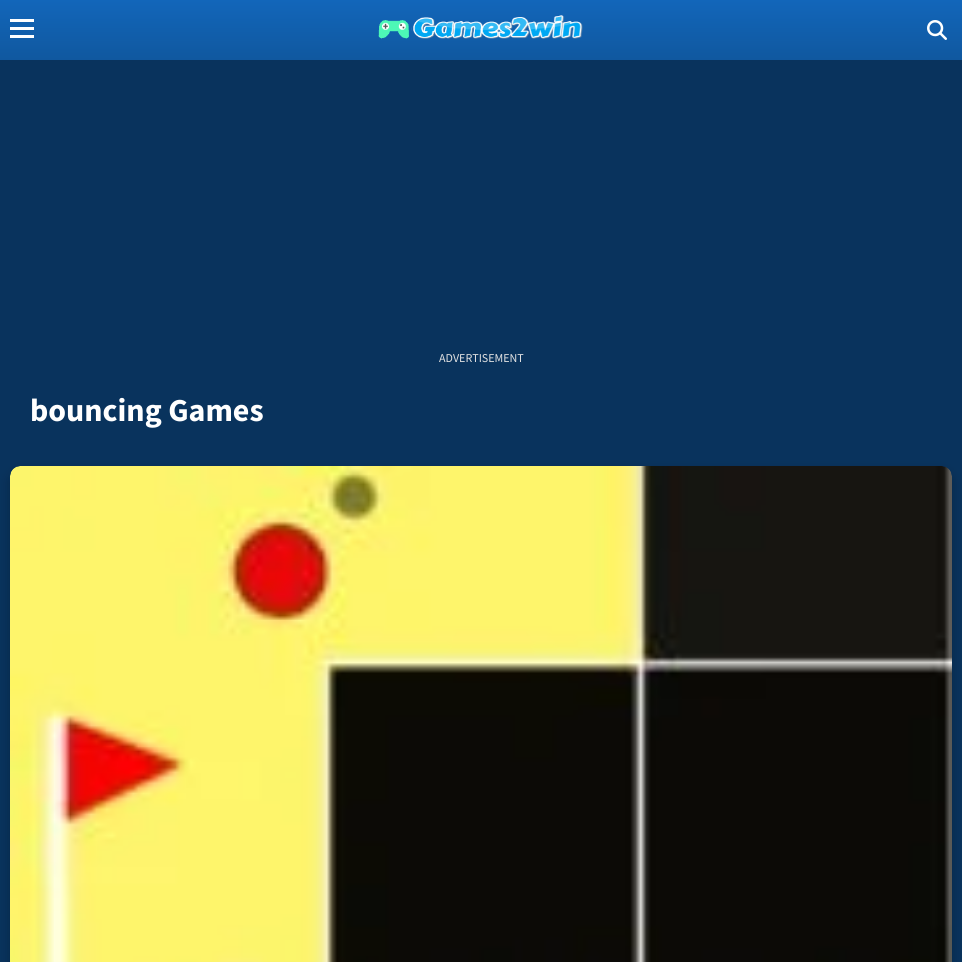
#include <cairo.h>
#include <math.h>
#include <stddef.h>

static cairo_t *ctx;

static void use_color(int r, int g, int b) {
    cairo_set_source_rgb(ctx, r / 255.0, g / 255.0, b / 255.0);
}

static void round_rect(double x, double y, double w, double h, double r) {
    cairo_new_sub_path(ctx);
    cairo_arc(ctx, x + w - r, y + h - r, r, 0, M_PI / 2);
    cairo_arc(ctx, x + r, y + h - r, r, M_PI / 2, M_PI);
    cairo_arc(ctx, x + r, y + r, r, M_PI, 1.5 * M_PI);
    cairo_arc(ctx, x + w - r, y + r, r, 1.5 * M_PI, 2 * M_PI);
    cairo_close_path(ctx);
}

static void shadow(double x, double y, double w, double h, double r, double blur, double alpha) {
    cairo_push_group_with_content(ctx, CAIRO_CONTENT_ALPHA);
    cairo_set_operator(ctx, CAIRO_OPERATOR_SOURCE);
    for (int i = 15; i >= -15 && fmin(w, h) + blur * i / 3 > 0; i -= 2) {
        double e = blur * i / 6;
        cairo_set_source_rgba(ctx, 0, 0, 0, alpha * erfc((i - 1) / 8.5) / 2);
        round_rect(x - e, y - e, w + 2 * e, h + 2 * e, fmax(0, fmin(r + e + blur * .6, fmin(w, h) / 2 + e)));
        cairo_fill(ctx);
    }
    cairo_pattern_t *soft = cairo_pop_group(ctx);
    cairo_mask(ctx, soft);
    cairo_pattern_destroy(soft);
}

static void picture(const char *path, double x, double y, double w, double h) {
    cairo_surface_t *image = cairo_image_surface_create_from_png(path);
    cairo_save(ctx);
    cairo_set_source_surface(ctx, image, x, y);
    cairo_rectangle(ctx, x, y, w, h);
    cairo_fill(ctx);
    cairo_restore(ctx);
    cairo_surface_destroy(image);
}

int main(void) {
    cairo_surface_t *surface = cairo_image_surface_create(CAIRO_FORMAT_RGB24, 962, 962);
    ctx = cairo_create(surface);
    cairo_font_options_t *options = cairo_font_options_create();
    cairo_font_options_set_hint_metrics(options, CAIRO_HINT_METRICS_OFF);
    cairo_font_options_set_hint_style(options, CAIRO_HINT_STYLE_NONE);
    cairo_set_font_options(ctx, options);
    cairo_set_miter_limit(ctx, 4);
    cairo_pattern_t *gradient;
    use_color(9, 51, 93);
    cairo_paint(ctx);
    gradient = cairo_pattern_create_linear(481, 0, 481, 60);
    cairo_pattern_add_color_stop_rgba(gradient, 0, 0.071, 0.4, 0.729, 1);
    cairo_pattern_add_color_stop_rgba(gradient, 1, 0.063, 0.345, 0.624, 1);
    cairo_set_source(ctx, gradient);
    cairo_pattern_destroy(gradient);
    cairo_rectangle(ctx, 0, 0, 962, 60);
    cairo_fill(ctx);
    use_color(255, 255, 255);
    cairo_rectangle(ctx, 10, 19, 24, 3);
    cairo_fill(ctx);
    cairo_rectangle(ctx, 10, 27, 24, 3);
    cairo_fill(ctx);
    cairo_rectangle(ctx, 10, 35, 24, 3);
    cairo_fill(ctx);
    picture("img1.png", 378, 15, 205, 24);
    picture("img2.png", 927, 20, 20, 20);
    cairo_select_font_face(ctx, "Source Sans Pro", CAIRO_FONT_SLANT_NORMAL, CAIRO_FONT_WEIGHT_NORMAL);
    cairo_set_font_size(ctx, 12);
    use_color(227, 227, 227);
    cairo_move_to(ctx, 439, 362);
    cairo_show_text(ctx, "ADVERTISEMENT");
    cairo_select_font_face(ctx, "Source Sans Pro", CAIRO_FONT_SLANT_NORMAL, CAIRO_FONT_WEIGHT_BOLD);
    cairo_set_font_size(ctx, 32);
    use_color(255, 255, 255);
    cairo_move_to(ctx, 30, 421);
    cairo_show_text(ctx, "bouncing Games");
    use_color(0, 0, 0);
    shadow(10, 472, 942, 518, 10, 6, 0.24);
    picture("img3.png", 10, 466, 942, 496);
    cairo_surface_write_to_png(surface, "result.png");
    cairo_font_options_destroy(options);
    cairo_destroy(ctx);
    cairo_surface_destroy(surface);
    return 0;
}
